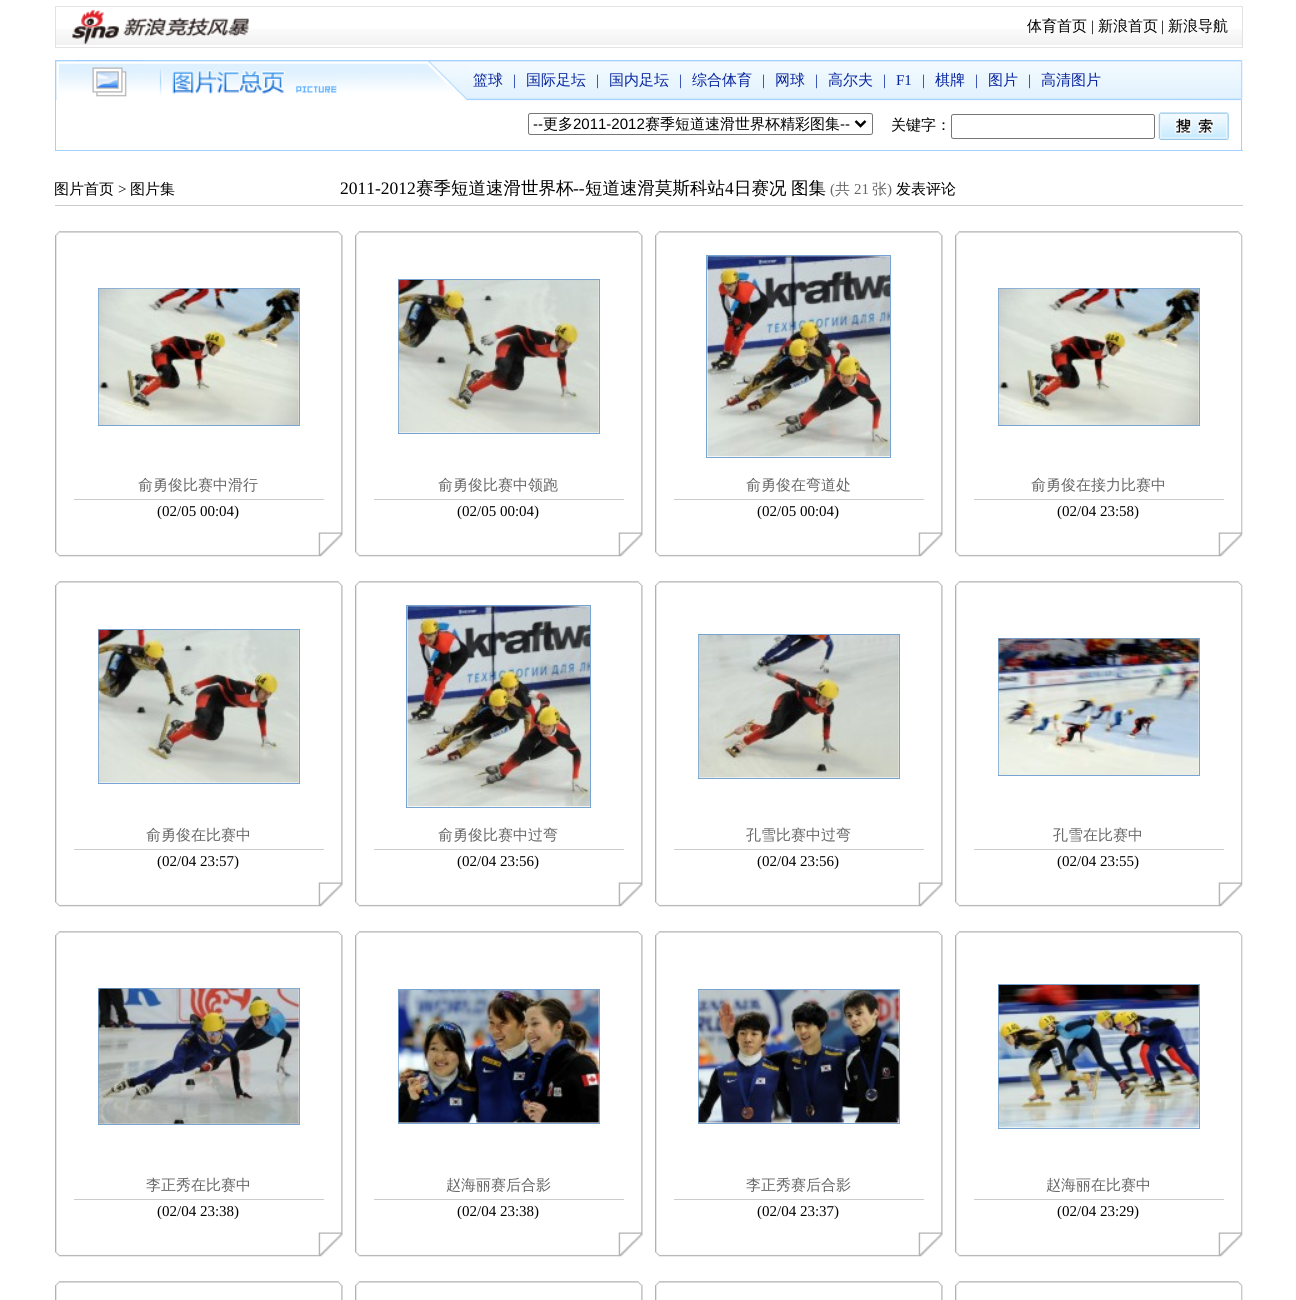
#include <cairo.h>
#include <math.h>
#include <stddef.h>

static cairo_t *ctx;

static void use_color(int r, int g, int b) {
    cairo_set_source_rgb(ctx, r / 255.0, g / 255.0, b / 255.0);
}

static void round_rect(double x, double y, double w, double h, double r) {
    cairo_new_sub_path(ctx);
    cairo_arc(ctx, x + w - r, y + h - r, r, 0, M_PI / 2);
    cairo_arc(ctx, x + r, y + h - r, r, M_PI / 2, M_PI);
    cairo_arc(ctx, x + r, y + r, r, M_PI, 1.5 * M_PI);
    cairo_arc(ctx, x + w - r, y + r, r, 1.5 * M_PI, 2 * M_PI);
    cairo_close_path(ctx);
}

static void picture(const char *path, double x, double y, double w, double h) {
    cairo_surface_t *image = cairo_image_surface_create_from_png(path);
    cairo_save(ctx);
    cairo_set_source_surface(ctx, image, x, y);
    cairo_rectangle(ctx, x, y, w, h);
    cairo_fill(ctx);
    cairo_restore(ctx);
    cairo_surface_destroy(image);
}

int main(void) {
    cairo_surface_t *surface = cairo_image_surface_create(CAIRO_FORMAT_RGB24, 1296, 1300);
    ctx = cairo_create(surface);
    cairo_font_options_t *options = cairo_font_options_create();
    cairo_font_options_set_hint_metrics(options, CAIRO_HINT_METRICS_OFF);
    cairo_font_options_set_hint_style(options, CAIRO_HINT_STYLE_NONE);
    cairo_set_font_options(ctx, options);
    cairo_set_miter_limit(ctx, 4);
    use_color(255, 255, 255);
    cairo_paint(ctx);
    picture("img1.png", 56, 29, 1186, 16);
    cairo_rectangle(ctx, 55.5, 6.5, 1187, 41);
    use_color(227, 227, 227);
    cairo_set_line_width(ctx, 1);
    cairo_stroke(ctx);
    picture("img2.png", 72, 9, 47, 35);
    picture("img3.png", 123, 17, 126, 20);
    cairo_select_font_face(ctx, "WenQuanYi Zen Hei Medium", CAIRO_FONT_SLANT_NORMAL, CAIRO_FONT_WEIGHT_NORMAL);
    cairo_set_font_size(ctx, 15);
    use_color(0, 0, 0);
    cairo_move_to(ctx, 1027, 31);
    cairo_show_text(ctx, "体育首页");
    cairo_select_font_face(ctx, "Liberation Serif", CAIRO_FONT_SLANT_NORMAL, CAIRO_FONT_WEIGHT_NORMAL);
    cairo_move_to(ctx, 1091, 31);
    cairo_show_text(ctx, "|");
    cairo_select_font_face(ctx, "WenQuanYi Zen Hei Medium", CAIRO_FONT_SLANT_NORMAL, CAIRO_FONT_WEIGHT_NORMAL);
    cairo_move_to(ctx, 1098, 31);
    cairo_show_text(ctx, "新浪首页");
    cairo_select_font_face(ctx, "Liberation Serif", CAIRO_FONT_SLANT_NORMAL, CAIRO_FONT_WEIGHT_NORMAL);
    cairo_move_to(ctx, 1161, 31);
    cairo_show_text(ctx, "|");
    cairo_select_font_face(ctx, "WenQuanYi Zen Hei Medium", CAIRO_FONT_SLANT_NORMAL, CAIRO_FONT_WEIGHT_NORMAL);
    cairo_move_to(ctx, 1168, 31);
    cairo_show_text(ctx, "新浪导航");
    picture("img4.png", 55, 60, 1188, 41);
    picture("img5.png", 172, 70, 165, 24);
    use_color(7, 36, 158);
    cairo_move_to(ctx, 473, 85);
    cairo_show_text(ctx, "篮球");
    cairo_select_font_face(ctx, "Liberation Serif", CAIRO_FONT_SLANT_NORMAL, CAIRO_FONT_WEIGHT_NORMAL);
    cairo_move_to(ctx, 513, 85);
    cairo_show_text(ctx, "|");
    cairo_select_font_face(ctx, "WenQuanYi Zen Hei Medium", CAIRO_FONT_SLANT_NORMAL, CAIRO_FONT_WEIGHT_NORMAL);
    cairo_move_to(ctx, 526, 85);
    cairo_show_text(ctx, "国际足坛");
    cairo_select_font_face(ctx, "Liberation Serif", CAIRO_FONT_SLANT_NORMAL, CAIRO_FONT_WEIGHT_NORMAL);
    cairo_move_to(ctx, 596, 85);
    cairo_show_text(ctx, "|");
    cairo_select_font_face(ctx, "WenQuanYi Zen Hei Medium", CAIRO_FONT_SLANT_NORMAL, CAIRO_FONT_WEIGHT_NORMAL);
    cairo_move_to(ctx, 609, 85);
    cairo_show_text(ctx, "国内足坛");
    cairo_select_font_face(ctx, "Liberation Serif", CAIRO_FONT_SLANT_NORMAL, CAIRO_FONT_WEIGHT_NORMAL);
    cairo_move_to(ctx, 679, 85);
    cairo_show_text(ctx, "|");
    cairo_select_font_face(ctx, "WenQuanYi Zen Hei Medium", CAIRO_FONT_SLANT_NORMAL, CAIRO_FONT_WEIGHT_NORMAL);
    cairo_move_to(ctx, 692, 85);
    cairo_show_text(ctx, "综合体育");
    cairo_select_font_face(ctx, "Liberation Serif", CAIRO_FONT_SLANT_NORMAL, CAIRO_FONT_WEIGHT_NORMAL);
    cairo_move_to(ctx, 762, 85);
    cairo_show_text(ctx, "|");
    cairo_select_font_face(ctx, "WenQuanYi Zen Hei Medium", CAIRO_FONT_SLANT_NORMAL, CAIRO_FONT_WEIGHT_NORMAL);
    cairo_move_to(ctx, 775, 85);
    cairo_show_text(ctx, "网球");
    cairo_select_font_face(ctx, "Liberation Serif", CAIRO_FONT_SLANT_NORMAL, CAIRO_FONT_WEIGHT_NORMAL);
    cairo_move_to(ctx, 815, 85);
    cairo_show_text(ctx, "|");
    cairo_select_font_face(ctx, "WenQuanYi Zen Hei Medium", CAIRO_FONT_SLANT_NORMAL, CAIRO_FONT_WEIGHT_NORMAL);
    cairo_move_to(ctx, 828, 85);
    cairo_show_text(ctx, "高尔夫");
    cairo_select_font_face(ctx, "Liberation Serif", CAIRO_FONT_SLANT_NORMAL, CAIRO_FONT_WEIGHT_NORMAL);
    cairo_move_to(ctx, 883, 85);
    cairo_show_text(ctx, "|");
    cairo_move_to(ctx, 896, 85);
    cairo_show_text(ctx, "F1");
    cairo_move_to(ctx, 922, 85);
    cairo_show_text(ctx, "|");
    cairo_select_font_face(ctx, "WenQuanYi Zen Hei Medium", CAIRO_FONT_SLANT_NORMAL, CAIRO_FONT_WEIGHT_NORMAL);
    cairo_move_to(ctx, 935, 85);
    cairo_show_text(ctx, "棋牌");
    cairo_select_font_face(ctx, "Liberation Serif", CAIRO_FONT_SLANT_NORMAL, CAIRO_FONT_WEIGHT_NORMAL);
    cairo_move_to(ctx, 975, 85);
    cairo_show_text(ctx, "|");
    cairo_select_font_face(ctx, "WenQuanYi Zen Hei Medium", CAIRO_FONT_SLANT_NORMAL, CAIRO_FONT_WEIGHT_NORMAL);
    cairo_move_to(ctx, 988, 85);
    cairo_show_text(ctx, "图片");
    cairo_select_font_face(ctx, "Liberation Serif", CAIRO_FONT_SLANT_NORMAL, CAIRO_FONT_WEIGHT_NORMAL);
    cairo_move_to(ctx, 1028, 85);
    cairo_show_text(ctx, "|");
    cairo_select_font_face(ctx, "WenQuanYi Zen Hei Medium", CAIRO_FONT_SLANT_NORMAL, CAIRO_FONT_WEIGHT_NORMAL);
    cairo_move_to(ctx, 1041, 85);
    cairo_show_text(ctx, "高清图片");
    use_color(162, 209, 255);
    cairo_rectangle(ctx, 1241, 100, 1, 51);
    cairo_fill(ctx);
    cairo_rectangle(ctx, 55, 150, 1188, 1);
    cairo_fill(ctx);
    cairo_rectangle(ctx, 55, 100, 1, 51);
    cairo_fill(ctx);
    round_rect(528.5, 113.5, 344, 21, 2);
    use_color(118, 118, 118);
    cairo_stroke(ctx);
    cairo_new_path(ctx);
    cairo_move_to(ctx, 855.5, 121);
    cairo_line_to(ctx, 860.5, 126);
    cairo_line_to(ctx, 865.5, 121);
    use_color(0, 0, 0);
    cairo_set_line_width(ctx, 2.5);
    cairo_stroke(ctx);
    cairo_select_font_face(ctx, "Liberation Sans", CAIRO_FONT_SLANT_NORMAL, CAIRO_FONT_WEIGHT_NORMAL);
    cairo_move_to(ctx, 533, 129);
    cairo_show_text(ctx, "--");
    cairo_select_font_face(ctx, "WenQuanYi Zen Hei Medium", CAIRO_FONT_SLANT_NORMAL, CAIRO_FONT_WEIGHT_NORMAL);
    cairo_move_to(ctx, 543, 129);
    cairo_show_text(ctx, "更多");
    cairo_select_font_face(ctx, "Liberation Sans", CAIRO_FONT_SLANT_NORMAL, CAIRO_FONT_WEIGHT_NORMAL);
    cairo_move_to(ctx, 573, 129);
    cairo_show_text(ctx, "2011-2012");
    cairo_select_font_face(ctx, "WenQuanYi Zen Hei Medium", CAIRO_FONT_SLANT_NORMAL, CAIRO_FONT_WEIGHT_NORMAL);
    cairo_move_to(ctx, 645, 129);
    cairo_show_text(ctx, "赛季短道速滑世界杯精彩图集");
    cairo_select_font_face(ctx, "Liberation Sans", CAIRO_FONT_SLANT_NORMAL, CAIRO_FONT_WEIGHT_NORMAL);
    cairo_move_to(ctx, 840, 129);
    cairo_show_text(ctx, "--");
    cairo_select_font_face(ctx, "WenQuanYi Zen Hei Medium", CAIRO_FONT_SLANT_NORMAL, CAIRO_FONT_WEIGHT_NORMAL);
    cairo_move_to(ctx, 891, 130);
    cairo_show_text(ctx, "关键字：");
    round_rect(951.5, 114.5, 203, 24, 2);
    use_color(118, 118, 118);
    cairo_set_line_width(ctx, 1);
    cairo_stroke(ctx);
    picture("img6.png", 1158, 112, 71, 28);
    use_color(204, 204, 204);
    cairo_rectangle(ctx, 55, 205, 1188, 1);
    cairo_fill(ctx);
    use_color(0, 0, 0);
    cairo_move_to(ctx, 54, 194);
    cairo_show_text(ctx, "图片首页");
    cairo_select_font_face(ctx, "Liberation Serif", CAIRO_FONT_SLANT_NORMAL, CAIRO_FONT_WEIGHT_NORMAL);
    cairo_move_to(ctx, 118, 194);
    cairo_show_text(ctx, ">");
    cairo_select_font_face(ctx, "WenQuanYi Zen Hei Medium", CAIRO_FONT_SLANT_NORMAL, CAIRO_FONT_WEIGHT_NORMAL);
    cairo_move_to(ctx, 130, 194);
    cairo_show_text(ctx, "图片集");
    cairo_select_font_face(ctx, "Liberation Serif", CAIRO_FONT_SLANT_NORMAL, CAIRO_FONT_WEIGHT_NORMAL);
    cairo_set_font_size(ctx, 17.5);
    cairo_move_to(ctx, 340, 194);
    cairo_show_text(ctx, "2011-2012");
    cairo_select_font_face(ctx, "WenQuanYi Zen Hei Medium", CAIRO_FONT_SLANT_NORMAL, CAIRO_FONT_WEIGHT_NORMAL);
    cairo_move_to(ctx, 416, 194);
    cairo_show_text(ctx, "赛季短道速滑世界杯");
    cairo_select_font_face(ctx, "Liberation Serif", CAIRO_FONT_SLANT_NORMAL, CAIRO_FONT_WEIGHT_NORMAL);
    cairo_move_to(ctx, 573, 194);
    cairo_show_text(ctx, "--");
    cairo_select_font_face(ctx, "WenQuanYi Zen Hei Medium", CAIRO_FONT_SLANT_NORMAL, CAIRO_FONT_WEIGHT_NORMAL);
    cairo_move_to(ctx, 585, 194);
    cairo_show_text(ctx, "短道速滑莫斯科站");
    cairo_select_font_face(ctx, "Liberation Serif", CAIRO_FONT_SLANT_NORMAL, CAIRO_FONT_WEIGHT_NORMAL);
    cairo_move_to(ctx, 725, 194);
    cairo_show_text(ctx, "4");
    cairo_select_font_face(ctx, "WenQuanYi Zen Hei Medium", CAIRO_FONT_SLANT_NORMAL, CAIRO_FONT_WEIGHT_NORMAL);
    cairo_move_to(ctx, 734, 194);
    cairo_show_text(ctx, "日赛况");
    cairo_move_to(ctx, 791, 194);
    cairo_show_text(ctx, "图集");
    cairo_select_font_face(ctx, "Liberation Serif", CAIRO_FONT_SLANT_NORMAL, CAIRO_FONT_WEIGHT_NORMAL);
    cairo_set_font_size(ctx, 15);
    use_color(102, 102, 102);
    cairo_move_to(ctx, 830, 194);
    cairo_show_text(ctx, "(");
    cairo_select_font_face(ctx, "WenQuanYi Zen Hei Medium", CAIRO_FONT_SLANT_NORMAL, CAIRO_FONT_WEIGHT_NORMAL);
    cairo_move_to(ctx, 835, 194);
    cairo_show_text(ctx, "共");
    cairo_select_font_face(ctx, "Liberation Serif", CAIRO_FONT_SLANT_NORMAL, CAIRO_FONT_WEIGHT_NORMAL);
    cairo_move_to(ctx, 854, 194);
    cairo_show_text(ctx, "21");
    cairo_select_font_face(ctx, "WenQuanYi Zen Hei Medium", CAIRO_FONT_SLANT_NORMAL, CAIRO_FONT_WEIGHT_NORMAL);
    cairo_move_to(ctx, 872, 194);
    cairo_show_text(ctx, "张");
    cairo_select_font_face(ctx, "Liberation Serif", CAIRO_FONT_SLANT_NORMAL, CAIRO_FONT_WEIGHT_NORMAL);
    cairo_move_to(ctx, 887, 194);
    cairo_show_text(ctx, ")");
    cairo_select_font_face(ctx, "WenQuanYi Zen Hei Medium", CAIRO_FONT_SLANT_NORMAL, CAIRO_FONT_WEIGHT_NORMAL);
    use_color(0, 0, 0);
    cairo_move_to(ctx, 896, 194);
    cairo_show_text(ctx, "发表评论");
    picture("img7.png", 55, 231, 288, 326);
    cairo_rectangle(ctx, 98.5, 288.5, 201, 137);
    use_color(119, 164, 210);
    cairo_stroke(ctx);
    picture("img8.png", 98, 288, 201, 137);
    use_color(204, 204, 204);
    cairo_rectangle(ctx, 74, 499, 250, 1);
    cairo_fill(ctx);
    use_color(102, 102, 102);
    cairo_move_to(ctx, 138, 490);
    cairo_show_text(ctx, "俞勇俊比赛中滑行");
    cairo_select_font_face(ctx, "Liberation Serif", CAIRO_FONT_SLANT_NORMAL, CAIRO_FONT_WEIGHT_NORMAL);
    use_color(0, 0, 0);
    cairo_move_to(ctx, 157, 516);
    cairo_show_text(ctx, "(02/05 00:04)");
    picture("img9.png", 355, 231, 288, 326);
    cairo_rectangle(ctx, 398.5, 279.5, 201, 154);
    use_color(119, 164, 210);
    cairo_stroke(ctx);
    picture("img10.png", 398, 280, 201, 153);
    use_color(204, 204, 204);
    cairo_rectangle(ctx, 374, 499, 250, 1);
    cairo_fill(ctx);
    cairo_select_font_face(ctx, "WenQuanYi Zen Hei Medium", CAIRO_FONT_SLANT_NORMAL, CAIRO_FONT_WEIGHT_NORMAL);
    use_color(102, 102, 102);
    cairo_move_to(ctx, 438, 490);
    cairo_show_text(ctx, "俞勇俊比赛中领跑");
    cairo_select_font_face(ctx, "Liberation Serif", CAIRO_FONT_SLANT_NORMAL, CAIRO_FONT_WEIGHT_NORMAL);
    use_color(0, 0, 0);
    cairo_move_to(ctx, 457, 516);
    cairo_show_text(ctx, "(02/05 00:04)");
    picture("img11.png", 655, 231, 288, 326);
    cairo_rectangle(ctx, 706.5, 255.5, 184, 202);
    use_color(119, 164, 210);
    cairo_stroke(ctx);
    picture("img12.png", 707, 256, 183, 201);
    use_color(204, 204, 204);
    cairo_rectangle(ctx, 674, 499, 250, 1);
    cairo_fill(ctx);
    cairo_select_font_face(ctx, "WenQuanYi Zen Hei Medium", CAIRO_FONT_SLANT_NORMAL, CAIRO_FONT_WEIGHT_NORMAL);
    use_color(102, 102, 102);
    cairo_move_to(ctx, 746, 490);
    cairo_show_text(ctx, "俞勇俊在弯道处");
    cairo_select_font_face(ctx, "Liberation Serif", CAIRO_FONT_SLANT_NORMAL, CAIRO_FONT_WEIGHT_NORMAL);
    use_color(0, 0, 0);
    cairo_move_to(ctx, 757, 516);
    cairo_show_text(ctx, "(02/05 00:04)");
    picture("img13.png", 955, 231, 288, 326);
    cairo_rectangle(ctx, 998.5, 288.5, 201, 137);
    use_color(119, 164, 210);
    cairo_stroke(ctx);
    picture("img14.png", 998, 288, 201, 137);
    use_color(204, 204, 204);
    cairo_rectangle(ctx, 974, 499, 250, 1);
    cairo_fill(ctx);
    cairo_select_font_face(ctx, "WenQuanYi Zen Hei Medium", CAIRO_FONT_SLANT_NORMAL, CAIRO_FONT_WEIGHT_NORMAL);
    use_color(102, 102, 102);
    cairo_move_to(ctx, 1031, 490);
    cairo_show_text(ctx, "俞勇俊在接力比赛中");
    cairo_select_font_face(ctx, "Liberation Serif", CAIRO_FONT_SLANT_NORMAL, CAIRO_FONT_WEIGHT_NORMAL);
    use_color(0, 0, 0);
    cairo_move_to(ctx, 1057, 516);
    cairo_show_text(ctx, "(02/04 23:58)");
    picture("img7.png", 55, 581, 288, 326);
    cairo_rectangle(ctx, 98.5, 629.5, 201, 154);
    use_color(119, 164, 210);
    cairo_stroke(ctx);
    picture("img15.png", 98, 630, 201, 153);
    use_color(204, 204, 204);
    cairo_rectangle(ctx, 74, 849, 250, 1);
    cairo_fill(ctx);
    cairo_select_font_face(ctx, "WenQuanYi Zen Hei Medium", CAIRO_FONT_SLANT_NORMAL, CAIRO_FONT_WEIGHT_NORMAL);
    use_color(102, 102, 102);
    cairo_move_to(ctx, 146, 840);
    cairo_show_text(ctx, "俞勇俊在比赛中");
    cairo_select_font_face(ctx, "Liberation Serif", CAIRO_FONT_SLANT_NORMAL, CAIRO_FONT_WEIGHT_NORMAL);
    use_color(0, 0, 0);
    cairo_move_to(ctx, 157, 866);
    cairo_show_text(ctx, "(02/04 23:57)");
    picture("img9.png", 355, 581, 288, 326);
    cairo_rectangle(ctx, 406.5, 605.5, 184, 202);
    use_color(119, 164, 210);
    cairo_stroke(ctx);
    picture("img16.png", 407, 606, 183, 201);
    use_color(204, 204, 204);
    cairo_rectangle(ctx, 374, 849, 250, 1);
    cairo_fill(ctx);
    cairo_select_font_face(ctx, "WenQuanYi Zen Hei Medium", CAIRO_FONT_SLANT_NORMAL, CAIRO_FONT_WEIGHT_NORMAL);
    use_color(102, 102, 102);
    cairo_move_to(ctx, 438, 840);
    cairo_show_text(ctx, "俞勇俊比赛中过弯");
    cairo_select_font_face(ctx, "Liberation Serif", CAIRO_FONT_SLANT_NORMAL, CAIRO_FONT_WEIGHT_NORMAL);
    use_color(0, 0, 0);
    cairo_move_to(ctx, 457, 866);
    cairo_show_text(ctx, "(02/04 23:56)");
    picture("img11.png", 655, 581, 288, 326);
    cairo_rectangle(ctx, 698.5, 634.5, 201, 144);
    use_color(119, 164, 210);
    cairo_stroke(ctx);
    picture("img17.png", 698, 635, 201, 143);
    use_color(204, 204, 204);
    cairo_rectangle(ctx, 674, 849, 250, 1);
    cairo_fill(ctx);
    cairo_select_font_face(ctx, "WenQuanYi Zen Hei Medium", CAIRO_FONT_SLANT_NORMAL, CAIRO_FONT_WEIGHT_NORMAL);
    use_color(102, 102, 102);
    cairo_move_to(ctx, 746, 840);
    cairo_show_text(ctx, "孔雪比赛中过弯");
    cairo_select_font_face(ctx, "Liberation Serif", CAIRO_FONT_SLANT_NORMAL, CAIRO_FONT_WEIGHT_NORMAL);
    use_color(0, 0, 0);
    cairo_move_to(ctx, 757, 866);
    cairo_show_text(ctx, "(02/04 23:56)");
    picture("img13.png", 955, 581, 288, 326);
    cairo_rectangle(ctx, 998.5, 638.5, 201, 137);
    use_color(119, 164, 210);
    cairo_stroke(ctx);
    picture("img18.png", 998, 638, 201, 137);
    use_color(204, 204, 204);
    cairo_rectangle(ctx, 974, 849, 250, 1);
    cairo_fill(ctx);
    cairo_select_font_face(ctx, "WenQuanYi Zen Hei Medium", CAIRO_FONT_SLANT_NORMAL, CAIRO_FONT_WEIGHT_NORMAL);
    use_color(102, 102, 102);
    cairo_move_to(ctx, 1053, 840);
    cairo_show_text(ctx, "孔雪在比赛中");
    cairo_select_font_face(ctx, "Liberation Serif", CAIRO_FONT_SLANT_NORMAL, CAIRO_FONT_WEIGHT_NORMAL);
    use_color(0, 0, 0);
    cairo_move_to(ctx, 1057, 866);
    cairo_show_text(ctx, "(02/04 23:55)");
    picture("img7.png", 55, 931, 288, 326);
    cairo_rectangle(ctx, 98.5, 988.5, 201, 136);
    use_color(119, 164, 210);
    cairo_stroke(ctx);
    picture("img19.png", 98, 988, 201, 136);
    use_color(204, 204, 204);
    cairo_rectangle(ctx, 74, 1199, 250, 1);
    cairo_fill(ctx);
    cairo_select_font_face(ctx, "WenQuanYi Zen Hei Medium", CAIRO_FONT_SLANT_NORMAL, CAIRO_FONT_WEIGHT_NORMAL);
    use_color(102, 102, 102);
    cairo_move_to(ctx, 146, 1190);
    cairo_show_text(ctx, "李正秀在比赛中");
    cairo_select_font_face(ctx, "Liberation Serif", CAIRO_FONT_SLANT_NORMAL, CAIRO_FONT_WEIGHT_NORMAL);
    use_color(0, 0, 0);
    cairo_move_to(ctx, 157, 1216);
    cairo_show_text(ctx, "(02/04 23:38)");
    picture("img9.png", 355, 931, 288, 326);
    cairo_rectangle(ctx, 398.5, 989.5, 201, 134);
    use_color(119, 164, 210);
    cairo_stroke(ctx);
    picture("img20.png", 398, 990, 201, 133);
    use_color(204, 204, 204);
    cairo_rectangle(ctx, 374, 1199, 250, 1);
    cairo_fill(ctx);
    cairo_select_font_face(ctx, "WenQuanYi Zen Hei Medium", CAIRO_FONT_SLANT_NORMAL, CAIRO_FONT_WEIGHT_NORMAL);
    use_color(102, 102, 102);
    cairo_move_to(ctx, 446, 1190);
    cairo_show_text(ctx, "赵海丽赛后合影");
    cairo_select_font_face(ctx, "Liberation Serif", CAIRO_FONT_SLANT_NORMAL, CAIRO_FONT_WEIGHT_NORMAL);
    use_color(0, 0, 0);
    cairo_move_to(ctx, 457, 1216);
    cairo_show_text(ctx, "(02/04 23:38)");
    picture("img11.png", 655, 931, 288, 326);
    cairo_rectangle(ctx, 698.5, 989.5, 201, 134);
    use_color(119, 164, 210);
    cairo_stroke(ctx);
    picture("img21.png", 698, 990, 201, 133);
    use_color(204, 204, 204);
    cairo_rectangle(ctx, 674, 1199, 250, 1);
    cairo_fill(ctx);
    cairo_select_font_face(ctx, "WenQuanYi Zen Hei Medium", CAIRO_FONT_SLANT_NORMAL, CAIRO_FONT_WEIGHT_NORMAL);
    use_color(102, 102, 102);
    cairo_move_to(ctx, 746, 1190);
    cairo_show_text(ctx, "李正秀赛后合影");
    cairo_select_font_face(ctx, "Liberation Serif", CAIRO_FONT_SLANT_NORMAL, CAIRO_FONT_WEIGHT_NORMAL);
    use_color(0, 0, 0);
    cairo_move_to(ctx, 757, 1216);
    cairo_show_text(ctx, "(02/04 23:37)");
    picture("img13.png", 955, 931, 288, 326);
    cairo_rectangle(ctx, 998.5, 984.5, 201, 144);
    use_color(119, 164, 210);
    cairo_stroke(ctx);
    picture("img22.png", 998, 985, 201, 143);
    use_color(204, 204, 204);
    cairo_rectangle(ctx, 974, 1199, 250, 1);
    cairo_fill(ctx);
    cairo_select_font_face(ctx, "WenQuanYi Zen Hei Medium", CAIRO_FONT_SLANT_NORMAL, CAIRO_FONT_WEIGHT_NORMAL);
    use_color(102, 102, 102);
    cairo_move_to(ctx, 1046, 1190);
    cairo_show_text(ctx, "赵海丽在比赛中");
    cairo_select_font_face(ctx, "Liberation Serif", CAIRO_FONT_SLANT_NORMAL, CAIRO_FONT_WEIGHT_NORMAL);
    use_color(0, 0, 0);
    cairo_move_to(ctx, 1057, 1216);
    cairo_show_text(ctx, "(02/04 23:29)");
    picture("img23.png", 55, 1281, 288, 19);
    picture("img23.png", 355, 1281, 288, 19);
    picture("img23.png", 655, 1281, 288, 19);
    picture("img24.png", 955, 1281, 288, 19);
    cairo_surface_write_to_png(surface, "result.png");
    cairo_font_options_destroy(options);
    cairo_destroy(ctx);
    cairo_surface_destroy(surface);
    return 0;
}
